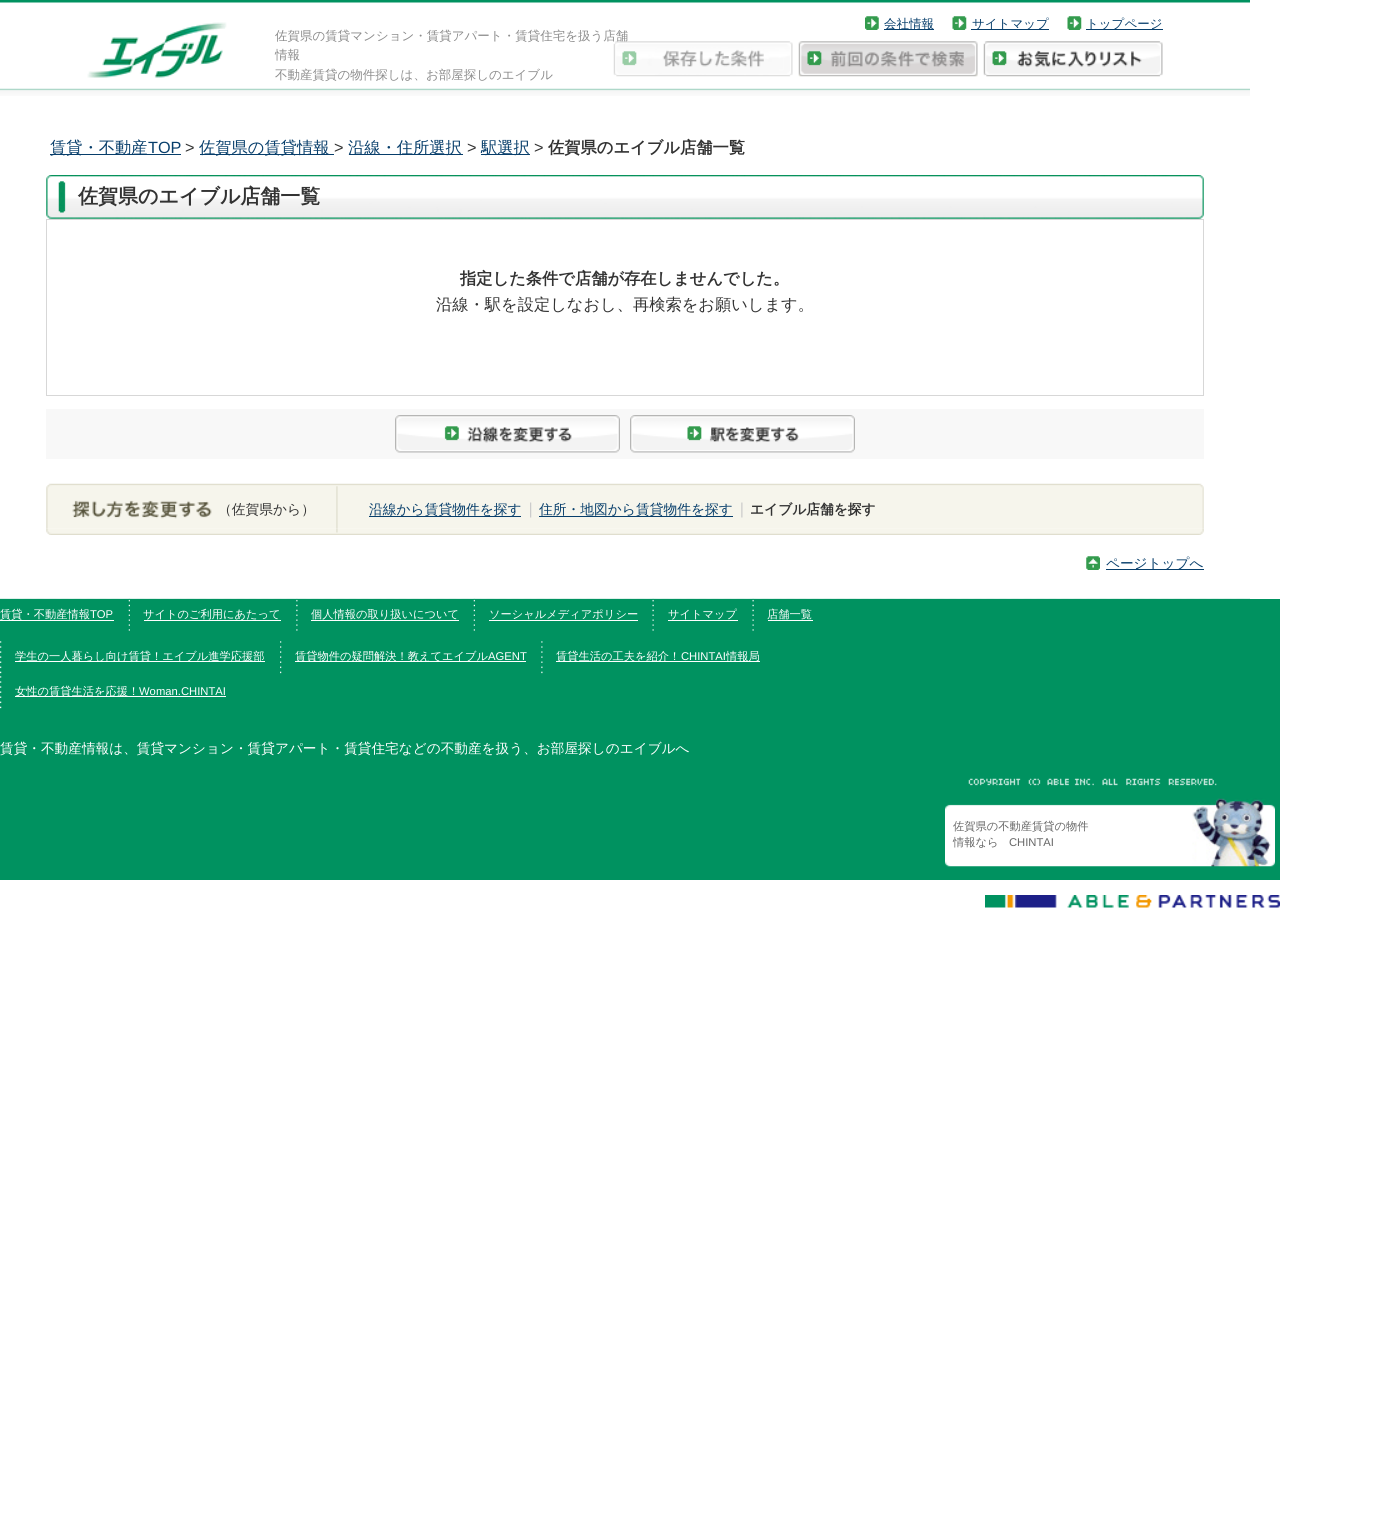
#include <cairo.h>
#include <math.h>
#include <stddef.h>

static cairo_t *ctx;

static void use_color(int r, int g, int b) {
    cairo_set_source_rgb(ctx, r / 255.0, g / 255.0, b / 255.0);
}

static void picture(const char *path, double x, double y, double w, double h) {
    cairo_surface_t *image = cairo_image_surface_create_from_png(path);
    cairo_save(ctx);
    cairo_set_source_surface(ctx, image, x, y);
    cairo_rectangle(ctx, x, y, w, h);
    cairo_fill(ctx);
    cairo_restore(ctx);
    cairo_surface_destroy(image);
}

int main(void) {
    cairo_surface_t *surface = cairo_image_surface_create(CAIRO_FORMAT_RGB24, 1400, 1522);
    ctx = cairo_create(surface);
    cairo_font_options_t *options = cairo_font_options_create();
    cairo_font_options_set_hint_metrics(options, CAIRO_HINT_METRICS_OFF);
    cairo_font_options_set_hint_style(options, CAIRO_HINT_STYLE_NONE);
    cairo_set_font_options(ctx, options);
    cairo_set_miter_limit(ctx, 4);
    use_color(255, 255, 255);
    cairo_paint(ctx);
    picture("img1.png", 0, 0, 1250, 96);
    picture("img2.png", 865, 16, 14, 14);
    use_color(7, 62, 107);
    cairo_rectangle(ctx, 884, 29, 50, 1);
    cairo_fill(ctx);
    cairo_select_font_face(ctx, "WenQuanYi Zen Hei Medium", CAIRO_FONT_SLANT_NORMAL, CAIRO_FONT_WEIGHT_NORMAL);
    cairo_set_font_size(ctx, 12.5);
    cairo_move_to(ctx, 884, 28);
    cairo_show_text(ctx, "会社情報");
    picture("img3.png", 952, 16, 15, 14);
    cairo_rectangle(ctx, 971, 29, 78, 1);
    cairo_fill(ctx);
    cairo_move_to(ctx, 972, 28);
    cairo_show_text(ctx, "サイトマップ");
    picture("img3.png", 1067, 16, 15, 14);
    cairo_rectangle(ctx, 1086, 29, 77, 1);
    cairo_fill(ctx);
    cairo_move_to(ctx, 1086, 28);
    cairo_show_text(ctx, "トップページ");
    picture("img4.png", 87, 22, 140, 56);
    use_color(140, 140, 140);
    cairo_move_to(ctx, 275, 40);
    cairo_show_text(ctx, "佐賀県の賃貸マンション・賃貸アパート・賃貸住宅を扱う店舗");
    cairo_move_to(ctx, 275, 59);
    cairo_show_text(ctx, "情報");
    cairo_move_to(ctx, 275, 79);
    cairo_show_text(ctx, "不動産賃貸の物件探しは、お部屋探しのエイブル");
    picture("img5.png", 613, 41, 180, 36);
    picture("img6.png", 798, 41, 180, 36);
    picture("img7.png", 983, 41, 180, 36);
    use_color(7, 62, 107);
    cairo_rectangle(ctx, 50, 154, 131, 1);
    cairo_fill(ctx);
    cairo_set_font_size(ctx, 16.25);
    cairo_move_to(ctx, 50, 153);
    cairo_show_text(ctx, "賃貸・不動産");
    cairo_select_font_face(ctx, "Liberation Sans", CAIRO_FONT_SLANT_NORMAL, CAIRO_FONT_WEIGHT_NORMAL);
    cairo_move_to(ctx, 148, 153);
    cairo_show_text(ctx, "TOP");
    use_color(51, 51, 51);
    cairo_move_to(ctx, 185, 153);
    cairo_show_text(ctx, ">");
    use_color(7, 62, 107);
    cairo_rectangle(ctx, 200, 154, 134, 1);
    cairo_fill(ctx);
    cairo_select_font_face(ctx, "WenQuanYi Zen Hei Medium", CAIRO_FONT_SLANT_NORMAL, CAIRO_FONT_WEIGHT_NORMAL);
    cairo_move_to(ctx, 199, 153);
    cairo_show_text(ctx, "佐賀県の賃貸情報");
    cairo_select_font_face(ctx, "Liberation Sans", CAIRO_FONT_SLANT_NORMAL, CAIRO_FONT_WEIGHT_NORMAL);
    use_color(51, 51, 51);
    cairo_move_to(ctx, 334, 153);
    cairo_show_text(ctx, ">");
    use_color(7, 62, 107);
    cairo_rectangle(ctx, 349, 154, 114, 1);
    cairo_fill(ctx);
    cairo_select_font_face(ctx, "WenQuanYi Zen Hei Medium", CAIRO_FONT_SLANT_NORMAL, CAIRO_FONT_WEIGHT_NORMAL);
    cairo_move_to(ctx, 348, 153);
    cairo_show_text(ctx, "沿線・住所選択");
    cairo_select_font_face(ctx, "Liberation Sans", CAIRO_FONT_SLANT_NORMAL, CAIRO_FONT_WEIGHT_NORMAL);
    use_color(51, 51, 51);
    cairo_move_to(ctx, 467, 153);
    cairo_show_text(ctx, ">");
    use_color(7, 62, 107);
    cairo_rectangle(ctx, 481, 154, 49, 1);
    cairo_fill(ctx);
    cairo_select_font_face(ctx, "WenQuanYi Zen Hei Medium", CAIRO_FONT_SLANT_NORMAL, CAIRO_FONT_WEIGHT_NORMAL);
    cairo_move_to(ctx, 481, 153);
    cairo_show_text(ctx, "駅選択");
    cairo_select_font_face(ctx, "Liberation Sans", CAIRO_FONT_SLANT_NORMAL, CAIRO_FONT_WEIGHT_NORMAL);
    use_color(51, 51, 51);
    cairo_move_to(ctx, 534, 153);
    cairo_show_text(ctx, ">");
    cairo_select_font_face(ctx, "WenQuanYi Zen Hei", CAIRO_FONT_SLANT_NORMAL, CAIRO_FONT_WEIGHT_BOLD);
    cairo_move_to(ctx, 548, 153);
    cairo_show_text(ctx, "佐賀県のエイブル店舗一覧");
    picture("img8.png", 46, 175, 1158, 44);
    cairo_set_font_size(ctx, 20);
    cairo_move_to(ctx, 78, 203);
    cairo_show_text(ctx, "佐賀県のエイブル店舗一覧");
    cairo_rectangle(ctx, 46.5, 219.5, 1157, 176);
    use_color(215, 215, 215);
    cairo_set_line_width(ctx, 1);
    cairo_stroke(ctx);
    cairo_set_font_size(ctx, 16.25);
    use_color(51, 51, 51);
    cairo_move_to(ctx, 460, 284);
    cairo_show_text(ctx, "指定した条件で店舗が存在しませんでした。");
    cairo_select_font_face(ctx, "WenQuanYi Zen Hei Medium", CAIRO_FONT_SLANT_NORMAL, CAIRO_FONT_WEIGHT_NORMAL);
    cairo_move_to(ctx, 436, 310);
    cairo_show_text(ctx, "沿線・駅を設定しなおし、再検索をお願いします。");
    use_color(248, 248, 248);
    cairo_rectangle(ctx, 46, 409, 1158, 50);
    cairo_fill(ctx);
    picture("img9.png", 395, 415, 225, 38);
    picture("img10.png", 630, 415, 225, 38);
    picture("img11.png", 46, 483, 1158, 46);
    cairo_set_font_size(ctx, 13.75);
    use_color(51, 51, 51);
    cairo_move_to(ctx, 218, 514);
    cairo_show_text(ctx, "（佐賀県から）");
    use_color(7, 62, 107);
    cairo_rectangle(ctx, 369, 516, 152, 1);
    cairo_fill(ctx);
    cairo_move_to(ctx, 369, 514);
    cairo_show_text(ctx, "沿線から賃貸物件を探す");
    picture("img12.png", 530, 502, 2, 16);
    cairo_rectangle(ctx, 539, 516, 194, 1);
    cairo_fill(ctx);
    cairo_move_to(ctx, 539, 514);
    cairo_show_text(ctx, "住所・地図から賃貸物件を探す");
    picture("img13.png", 741, 502, 2, 16);
    cairo_select_font_face(ctx, "WenQuanYi Zen Hei", CAIRO_FONT_SLANT_NORMAL, CAIRO_FONT_WEIGHT_BOLD);
    use_color(51, 51, 51);
    cairo_move_to(ctx, 750, 514);
    cairo_show_text(ctx, "エイブル店舗を探す");
    picture("img14.png", 46, 528, 1158, 7);
    picture("img15.png", 1086, 556, 14, 14);
    use_color(7, 62, 107);
    cairo_rectangle(ctx, 1106, 569, 98, 1);
    cairo_fill(ctx);
    cairo_select_font_face(ctx, "WenQuanYi Zen Hei Medium", CAIRO_FONT_SLANT_NORMAL, CAIRO_FONT_WEIGHT_NORMAL);
    cairo_set_font_size(ctx, 13.65);
    cairo_move_to(ctx, 1106, 568);
    cairo_show_text(ctx, "ページトップへ");
    picture("img16.png", 0, 598, 1250, 1);
    use_color(0, 146, 96);
    cairo_rectangle(ctx, 0, 599, 1280, 281);
    cairo_fill(ctx);
    cairo_set_font_size(ctx, 11.25);
    use_color(255, 255, 255);
    cairo_move_to(ctx, 0, 618);
    cairo_show_text(ctx, "賃貸・不動産情報");
    cairo_select_font_face(ctx, "Liberation Sans", CAIRO_FONT_SLANT_NORMAL, CAIRO_FONT_WEIGHT_NORMAL);
    cairo_move_to(ctx, 90, 618);
    cairo_show_text(ctx, "TOP");
    cairo_rectangle(ctx, 0, 620, 114, 1);
    cairo_fill(ctx);
    picture("img17.png", 128, 598, 2, 33);
    cairo_select_font_face(ctx, "WenQuanYi Zen Hei Medium", CAIRO_FONT_SLANT_NORMAL, CAIRO_FONT_WEIGHT_NORMAL);
    cairo_move_to(ctx, 143, 618);
    cairo_show_text(ctx, "サイトのご利用にあたって");
    cairo_rectangle(ctx, 144, 620, 137, 1);
    cairo_fill(ctx);
    picture("img18.png", 296, 598, 2, 33);
    cairo_move_to(ctx, 311, 618);
    cairo_show_text(ctx, "個人情報の取り扱いについて");
    cairo_rectangle(ctx, 311, 620, 148, 1);
    cairo_fill(ctx);
    picture("img19.png", 473, 598, 2, 33);
    cairo_move_to(ctx, 489, 618);
    cairo_show_text(ctx, "ソーシャルメディアポリシー");
    cairo_rectangle(ctx, 489, 620, 149, 1);
    cairo_fill(ctx);
    picture("img20.png", 652, 598, 2, 33);
    cairo_move_to(ctx, 668, 618);
    cairo_show_text(ctx, "サイトマップ");
    cairo_rectangle(ctx, 668, 620, 70, 1);
    cairo_fill(ctx);
    picture("img20.png", 752, 598, 2, 33);
    cairo_move_to(ctx, 767, 618);
    cairo_show_text(ctx, "店舗一覧");
    cairo_rectangle(ctx, 768, 620, 45, 1);
    cairo_fill(ctx);
    picture("img21.png", 0, 641, 2, 33);
    cairo_rectangle(ctx, 15, 661, 250, 1);
    cairo_fill(ctx);
    cairo_move_to(ctx, 15, 660);
    cairo_show_text(ctx, "学生の一人暮らし向け賃貸！エイブル進学応援部");
    picture("img21.png", 280, 641, 2, 33);
    cairo_rectangle(ctx, 295, 661, 231, 1);
    cairo_fill(ctx);
    cairo_move_to(ctx, 295, 660);
    cairo_show_text(ctx, "賃貸物件の疑問解決！教えてエイブル");
    cairo_select_font_face(ctx, "Liberation Sans", CAIRO_FONT_SLANT_NORMAL, CAIRO_FONT_WEIGHT_NORMAL);
    cairo_move_to(ctx, 488, 660);
    cairo_show_text(ctx, "AGENT");
    picture("img22.png", 541, 641, 2, 33);
    cairo_rectangle(ctx, 556, 661, 204, 1);
    cairo_fill(ctx);
    cairo_select_font_face(ctx, "WenQuanYi Zen Hei Medium", CAIRO_FONT_SLANT_NORMAL, CAIRO_FONT_WEIGHT_NORMAL);
    cairo_move_to(ctx, 556, 660);
    cairo_show_text(ctx, "賃貸生活の工夫を紹介！");
    cairo_select_font_face(ctx, "Liberation Sans", CAIRO_FONT_SLANT_NORMAL, CAIRO_FONT_WEIGHT_NORMAL);
    cairo_move_to(ctx, 681, 660);
    cairo_show_text(ctx, "CHINTAI");
    cairo_select_font_face(ctx, "WenQuanYi Zen Hei Medium", CAIRO_FONT_SLANT_NORMAL, CAIRO_FONT_WEIGHT_NORMAL);
    cairo_move_to(ctx, 726, 660);
    cairo_show_text(ctx, "情報局");
    picture("img21.png", 0, 676, 2, 33);
    cairo_rectangle(ctx, 15, 696, 211, 1);
    cairo_fill(ctx);
    cairo_move_to(ctx, 15, 695);
    cairo_show_text(ctx, "女性の賃貸生活を応援！");
    cairo_select_font_face(ctx, "Liberation Sans", CAIRO_FONT_SLANT_NORMAL, CAIRO_FONT_WEIGHT_NORMAL);
    cairo_move_to(ctx, 139, 695);
    cairo_show_text(ctx, "Woman.CHINTAI");
    cairo_select_font_face(ctx, "WenQuanYi Zen Hei Medium", CAIRO_FONT_SLANT_NORMAL, CAIRO_FONT_WEIGHT_NORMAL);
    cairo_set_font_size(ctx, 13.65);
    cairo_move_to(ctx, 0, 753);
    cairo_show_text(ctx, "賃貸・不動産情報は、賃貸マンション・賃貸アパート・賃貸住宅などの不動産を扱う、お部屋探しのエイブルへ");
    picture("img23.png", 968, 778, 249, 8);
    picture("img24.png", 945, 798, 330, 62);
    cairo_set_font_size(ctx, 11.25);
    use_color(102, 102, 102);
    cairo_move_to(ctx, 953, 830);
    cairo_show_text(ctx, "佐賀県の不動産賃貸の物件");
    cairo_move_to(ctx, 953, 846);
    cairo_show_text(ctx, "情報なら");
    cairo_select_font_face(ctx, "Liberation Sans", CAIRO_FONT_SLANT_NORMAL, CAIRO_FONT_WEIGHT_NORMAL);
    cairo_move_to(ctx, 1009, 846);
    cairo_show_text(ctx, "CHINTAI");
    picture("img25.png", 945, 860, 330, 7);
    picture("img26.png", 985, 895, 295, 13);
    cairo_surface_write_to_png(surface, "result.png");
    cairo_font_options_destroy(options);
    cairo_destroy(ctx);
    cairo_surface_destroy(surface);
    return 0;
}
